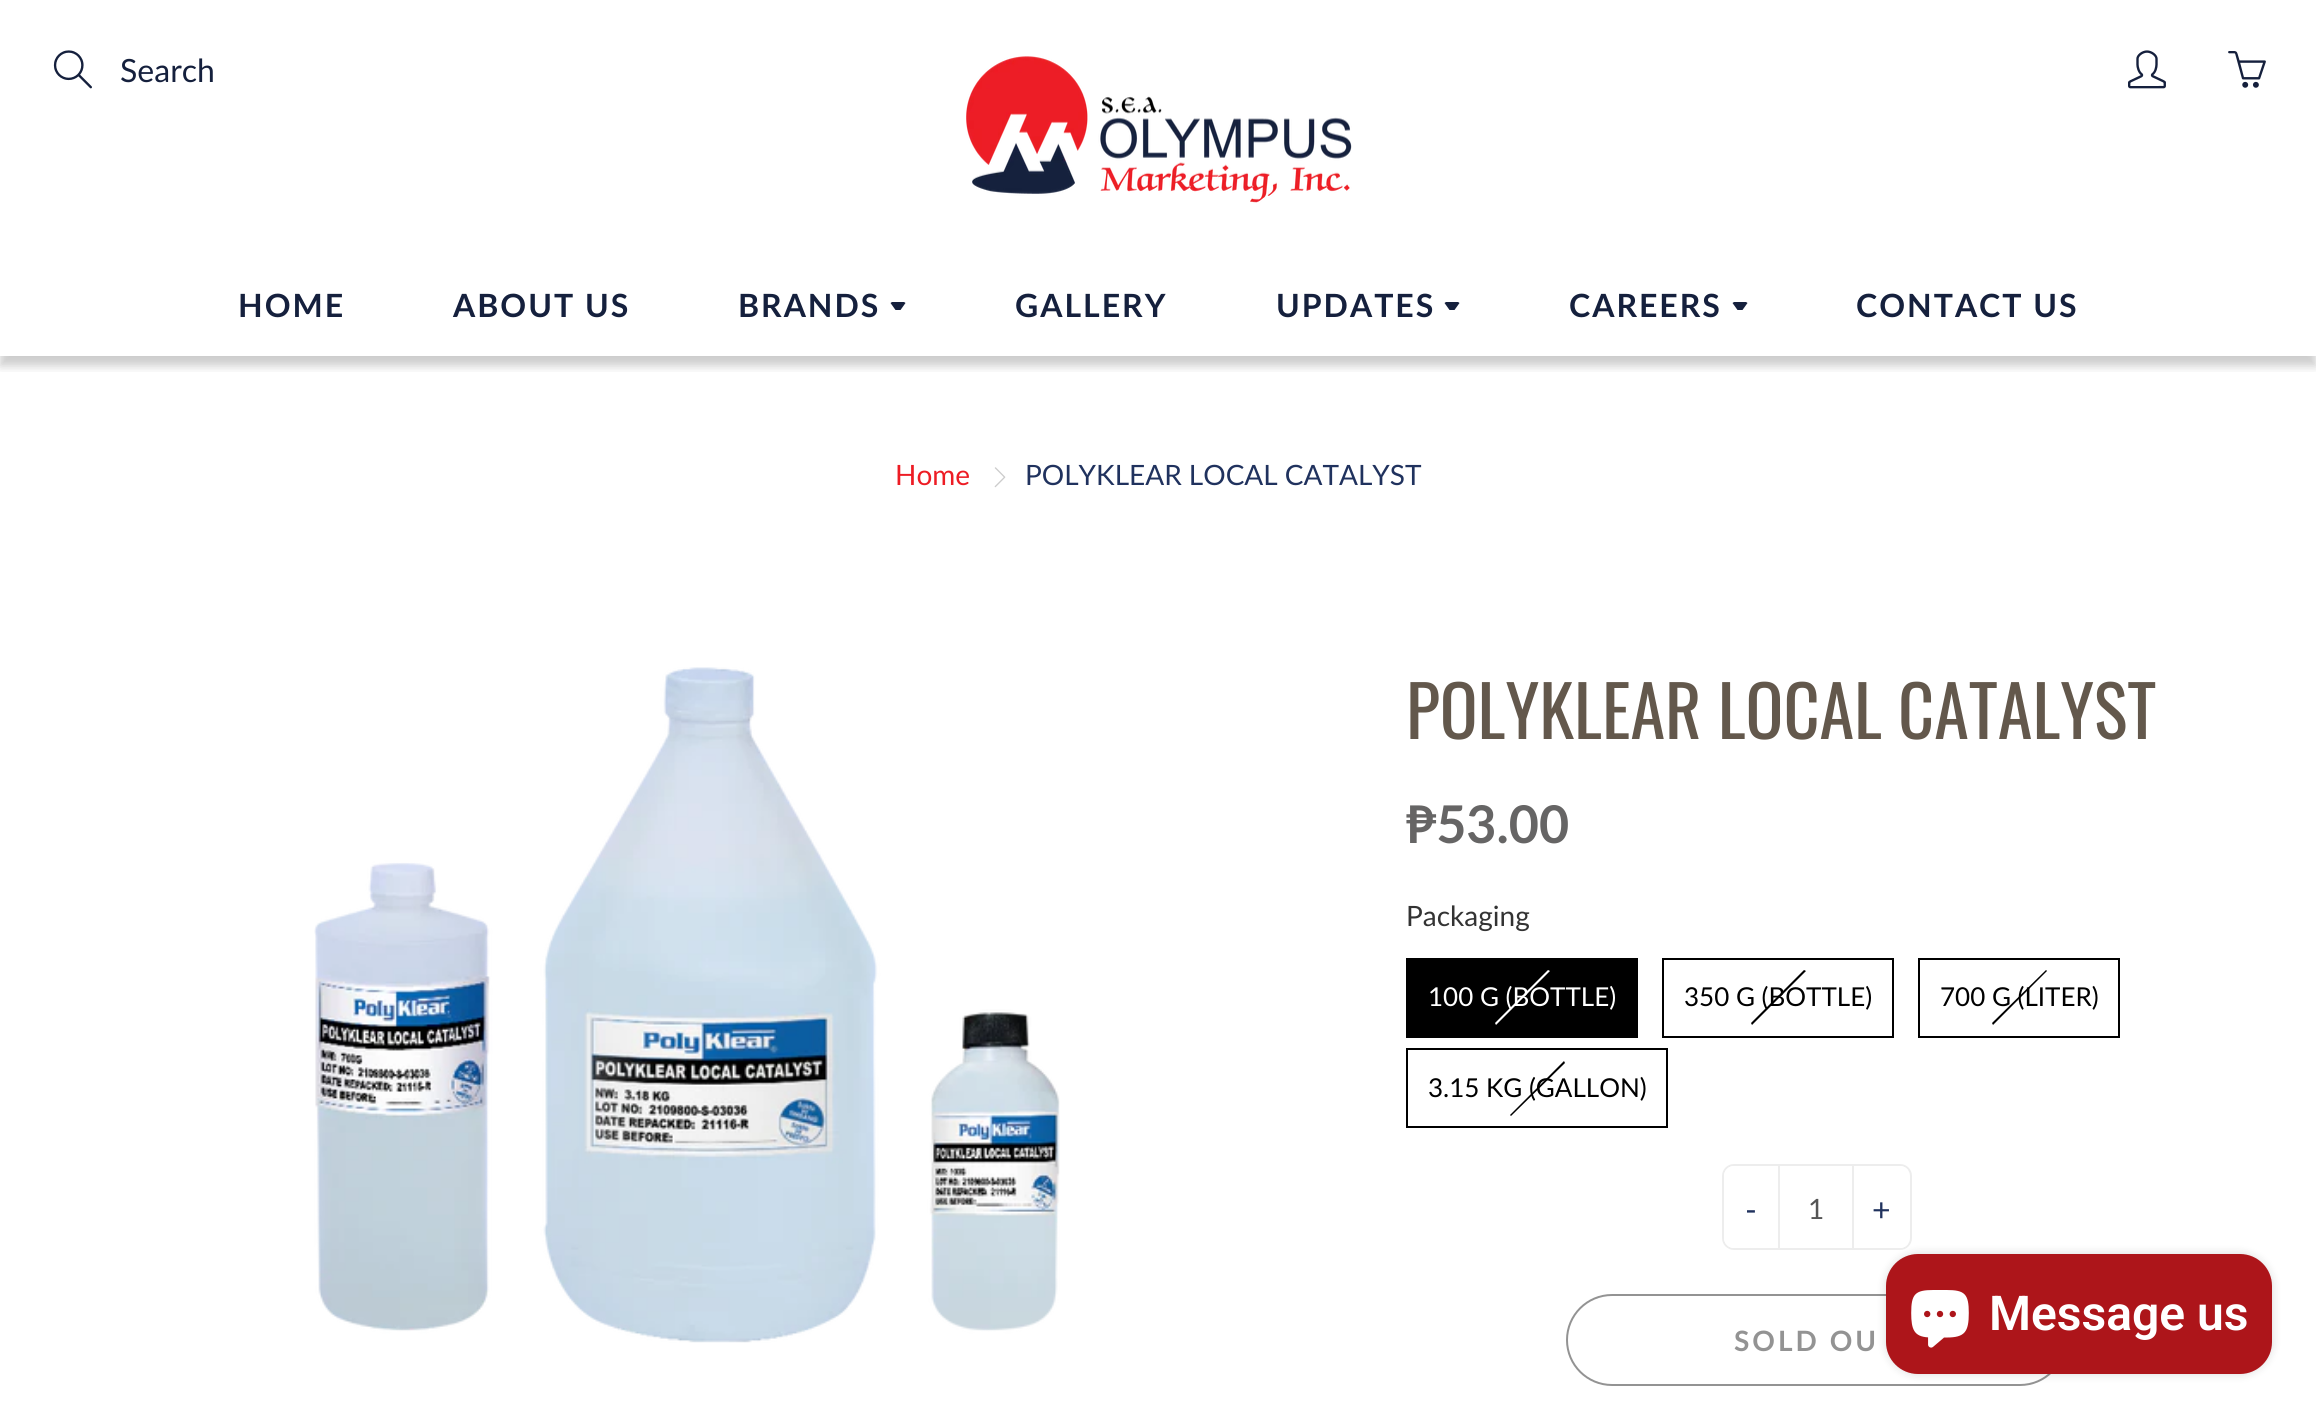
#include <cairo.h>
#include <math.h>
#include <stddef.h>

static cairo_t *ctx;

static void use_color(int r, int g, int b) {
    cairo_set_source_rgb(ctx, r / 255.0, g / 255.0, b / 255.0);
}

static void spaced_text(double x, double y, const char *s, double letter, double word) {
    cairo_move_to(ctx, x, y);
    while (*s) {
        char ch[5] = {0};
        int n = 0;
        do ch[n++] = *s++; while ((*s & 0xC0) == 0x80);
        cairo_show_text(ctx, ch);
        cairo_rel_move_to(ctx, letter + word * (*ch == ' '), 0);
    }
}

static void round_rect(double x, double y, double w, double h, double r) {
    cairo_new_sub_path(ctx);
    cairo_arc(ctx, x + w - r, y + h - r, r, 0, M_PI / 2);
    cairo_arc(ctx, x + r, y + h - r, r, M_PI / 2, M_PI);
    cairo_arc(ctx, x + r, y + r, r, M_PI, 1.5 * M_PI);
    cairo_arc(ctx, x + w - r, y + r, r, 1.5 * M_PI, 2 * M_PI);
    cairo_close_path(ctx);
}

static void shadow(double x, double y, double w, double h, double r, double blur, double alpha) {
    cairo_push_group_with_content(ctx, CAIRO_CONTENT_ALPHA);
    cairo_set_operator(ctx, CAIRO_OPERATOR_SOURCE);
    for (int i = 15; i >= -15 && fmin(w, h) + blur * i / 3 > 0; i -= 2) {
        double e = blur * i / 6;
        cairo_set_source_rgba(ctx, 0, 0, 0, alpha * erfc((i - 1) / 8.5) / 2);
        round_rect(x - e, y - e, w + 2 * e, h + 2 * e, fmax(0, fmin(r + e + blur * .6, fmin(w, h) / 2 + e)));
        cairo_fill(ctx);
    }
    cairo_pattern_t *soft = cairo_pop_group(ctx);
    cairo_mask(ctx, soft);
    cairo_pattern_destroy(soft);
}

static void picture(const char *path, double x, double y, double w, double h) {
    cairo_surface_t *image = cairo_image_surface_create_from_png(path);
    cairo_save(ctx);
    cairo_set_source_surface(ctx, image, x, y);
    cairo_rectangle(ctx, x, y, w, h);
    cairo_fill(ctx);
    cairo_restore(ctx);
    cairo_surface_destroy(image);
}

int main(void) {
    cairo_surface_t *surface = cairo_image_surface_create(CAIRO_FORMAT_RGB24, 2316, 1415);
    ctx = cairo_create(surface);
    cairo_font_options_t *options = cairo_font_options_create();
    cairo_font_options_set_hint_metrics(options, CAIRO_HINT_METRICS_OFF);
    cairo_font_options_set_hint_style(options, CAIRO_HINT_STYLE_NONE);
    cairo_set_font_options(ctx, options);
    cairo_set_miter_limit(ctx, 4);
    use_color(255, 255, 255);
    cairo_paint(ctx);
    cairo_save(ctx);
    cairo_rectangle(ctx, 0, 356, 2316, 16);
    cairo_clip(ctx);
    use_color(0, 0, 0);
    shadow(0, 10, 2316, 356, 0, 5, 0.2);
    cairo_restore(ctx);
    picture("img1.png", 53, 50, 39, 39);
    cairo_select_font_face(ctx, "Lato", CAIRO_FONT_SLANT_NORMAL, CAIRO_FONT_WEIGHT_NORMAL);
    cairo_set_font_size(ctx, 32);
    use_color(21, 32, 61);
    cairo_move_to(ctx, 120, 82);
    cairo_show_text(ctx, "Search");
    picture("img2.png", 966, 56, 386, 147);
    picture("img3.png", 2128, 50, 38, 39);
    picture("img4.png", 2228, 51, 38, 37);
    cairo_select_font_face(ctx, "Lato", CAIRO_FONT_SLANT_NORMAL, CAIRO_FONT_WEIGHT_BOLD);
    spaced_text(238, 317, "HOME", 2, 0);
    spaced_text(453, 317, "ABOUT US", 2, 0);
    spaced_text(738, 317, "BRANDS", 2, 0);
    cairo_new_path(ctx);
    cairo_move_to(ctx, 892, 302);
    cairo_line_to(ctx, 890.5, 303);
    cairo_line_to(ctx, 895.5, 310);
    cairo_line_to(ctx, 900.5, 310);
    cairo_line_to(ctx, 905.5, 303);
    cairo_line_to(ctx, 904, 302);
    cairo_close_path(ctx);
    cairo_fill(ctx);
    spaced_text(1015, 317, "GALLERY", 2, 0);
    spaced_text(1276, 317, "UPDATES", 2, 0);
    cairo_new_path(ctx);
    cairo_move_to(ctx, 1446, 302);
    cairo_line_to(ctx, 1444.5, 303);
    cairo_line_to(ctx, 1449.5, 310);
    cairo_line_to(ctx, 1454.5, 310);
    cairo_line_to(ctx, 1459.5, 303);
    cairo_line_to(ctx, 1458, 302);
    cairo_close_path(ctx);
    cairo_fill(ctx);
    spaced_text(1569, 317, "CAREERS", 2, 0);
    cairo_new_path(ctx);
    cairo_move_to(ctx, 1734, 302);
    cairo_line_to(ctx, 1732.5, 303);
    cairo_line_to(ctx, 1737.5, 310);
    cairo_line_to(ctx, 1742.5, 310);
    cairo_line_to(ctx, 1747.5, 303);
    cairo_line_to(ctx, 1746, 302);
    cairo_close_path(ctx);
    cairo_fill(ctx);
    spaced_text(1856, 317, "CONTACT US", 2, 0);
    cairo_select_font_face(ctx, "Lato", CAIRO_FONT_SLANT_NORMAL, CAIRO_FONT_WEIGHT_NORMAL);
    cairo_set_font_size(ctx, 28);
    use_color(237, 28, 36);
    cairo_move_to(ctx, 895, 485);
    cairo_show_text(ctx, "Home");
    picture("img5.png", 994, 467, 12, 21);
    use_color(32, 50, 94);
    cairo_move_to(ctx, 1025, 485);
    cairo_show_text(ctx, "POLYKLEAR LOCAL CATALYST");
    picture("img6.png", 314, 667, 746, 676);
    cairo_select_font_face(ctx, "Oswald", CAIRO_FONT_SLANT_NORMAL, CAIRO_FONT_WEIGHT_NORMAL);
    cairo_set_font_size(ctx, 70.25);
    use_color(99, 88, 76);
    cairo_move_to(ctx, 1406, 739);
    cairo_show_text(ctx, "POLYKLEAR LOCAL CATALYST");
    cairo_select_font_face(ctx, "Lato", CAIRO_FONT_SLANT_NORMAL, CAIRO_FONT_WEIGHT_BOLD);
    cairo_set_font_size(ctx, 52);
    use_color(102, 101, 101);
    cairo_move_to(ctx, 1406, 843);
    cairo_show_text(ctx, "₱53.00");
    cairo_select_font_face(ctx, "Lato", CAIRO_FONT_SLANT_NORMAL, CAIRO_FONT_WEIGHT_NORMAL);
    cairo_set_font_size(ctx, 28);
    use_color(51, 51, 51);
    cairo_move_to(ctx, 1406, 926);
    cairo_show_text(ctx, "Packaging");
    cairo_rectangle(ctx, 1407, 959, 230, 78);
    use_color(0, 0, 0);
    cairo_stroke(ctx);
    cairo_rectangle(ctx, 1408, 960, 228, 76);
    cairo_fill(ctx);
    use_color(255, 255, 255);
    cairo_new_path(ctx);
    cairo_move_to(ctx, 1548, 970);
    cairo_line_to(ctx, 1550, 971);
    cairo_line_to(ctx, 1496, 1025);
    cairo_line_to(ctx, 1495, 1023);
    cairo_close_path(ctx);
    cairo_fill(ctx);
    cairo_set_font_size(ctx, 26);
    cairo_move_to(ctx, 1428, 1006);
    cairo_show_text(ctx, "100 G (BOTTLE)");
    cairo_rectangle(ctx, 1663, 959, 230, 78);
    use_color(0, 0, 0);
    cairo_stroke(ctx);
    cairo_new_path(ctx);
    cairo_move_to(ctx, 1804, 970);
    cairo_line_to(ctx, 1806, 971);
    cairo_line_to(ctx, 1752, 1025);
    cairo_line_to(ctx, 1751, 1023);
    cairo_close_path(ctx);
    cairo_fill(ctx);
    cairo_move_to(ctx, 1684, 1006);
    cairo_show_text(ctx, "350 G (BOTTLE)");
    cairo_rectangle(ctx, 1919, 959, 200, 78);
    cairo_stroke(ctx);
    cairo_new_path(ctx);
    cairo_move_to(ctx, 2046, 970);
    cairo_line_to(ctx, 2047, 971);
    cairo_line_to(ctx, 1993, 1025);
    cairo_line_to(ctx, 1992, 1023);
    cairo_close_path(ctx);
    cairo_fill(ctx);
    cairo_move_to(ctx, 1940, 1006);
    cairo_show_text(ctx, "700 G (LITER)");
    cairo_rectangle(ctx, 1407, 1049, 260, 78);
    cairo_stroke(ctx);
    cairo_new_path(ctx);
    cairo_move_to(ctx, 1564, 1061);
    cairo_line_to(ctx, 1565, 1063);
    cairo_line_to(ctx, 1511, 1116);
    cairo_line_to(ctx, 1510, 1115);
    cairo_close_path(ctx);
    cairo_fill(ctx);
    cairo_move_to(ctx, 1428, 1097);
    cairo_show_text(ctx, "3.15 KG (GALLON)");
    round_rect(1723, 1165, 188, 84, 11);
    use_color(237, 237, 237);
    cairo_stroke(ctx);
    use_color(255, 255, 255);
    cairo_new_path(ctx);
    cairo_move_to(ctx, 1734, 1166);
    cairo_line_to(ctx, 1778, 1166);
    cairo_line_to(ctx, 1778, 1248);
    cairo_line_to(ctx, 1734, 1248);
    cairo_curve_to(ctx, 1728.5, 1248, 1724, 1243.5, 1724, 1238);
    cairo_line_to(ctx, 1724, 1176);
    cairo_curve_to(ctx, 1724, 1170.5, 1728.5, 1166, 1734, 1166);
    cairo_close_path(ctx);
    cairo_fill(ctx);
    cairo_set_font_size(ctx, 32);
    use_color(32, 50, 94);
    cairo_move_to(ctx, 1745, 1221);
    cairo_show_text(ctx, "-");
    use_color(237, 237, 237);
    cairo_rectangle(ctx, 1852, 1166, 2, 82);
    cairo_fill(ctx);
    cairo_rectangle(ctx, 1778, 1166, 2, 82);
    cairo_fill(ctx);
    cairo_set_font_size(ctx, 28);
    use_color(85, 85, 85);
    cairo_move_to(ctx, 1808, 1219);
    cairo_show_text(ctx, "1");
    cairo_save(ctx);
    round_rect(1724, 1166, 186, 82, 10);
    cairo_clip(ctx);
    use_color(255, 255, 255);
    cairo_rectangle(ctx, 1854, 1166, 54, 82);
    cairo_fill(ctx);
    cairo_restore(ctx);
    cairo_set_font_size(ctx, 32);
    use_color(32, 50, 94);
    cairo_move_to(ctx, 1872, 1221);
    cairo_show_text(ctx, "+");
    round_rect(1567, 1295, 498, 90, 45);
    use_color(147, 147, 147);
    cairo_stroke(ctx);
    cairo_select_font_face(ctx, "Lato", CAIRO_FONT_SLANT_NORMAL, CAIRO_FONT_WEIGHT_BOLD);
    cairo_set_font_size(ctx, 28);
    spaced_text(1734, 1351, "SOLD OU", 3, 0);
    use_color(0, 0, 0);
    shadow(1886, 1254, 386, 120, 32, 5, 0.15);
    use_color(173, 21, 26);
    round_rect(1886, 1254, 386, 120, 32);
    cairo_fill(ctx);
    picture("img7.png", 1911, 1290, 58, 58);
    cairo_select_font_face(ctx, "Roboto SemiBold", CAIRO_FONT_SLANT_NORMAL, CAIRO_FONT_WEIGHT_NORMAL);
    cairo_set_font_size(ctx, 48);
    use_color(255, 255, 255);
    cairo_move_to(ctx, 1989, 1330);
    cairo_show_text(ctx, "Message us");
    cairo_surface_write_to_png(surface, "result.png");
    cairo_font_options_destroy(options);
    cairo_destroy(ctx);
    cairo_surface_destroy(surface);
    return 0;
}
